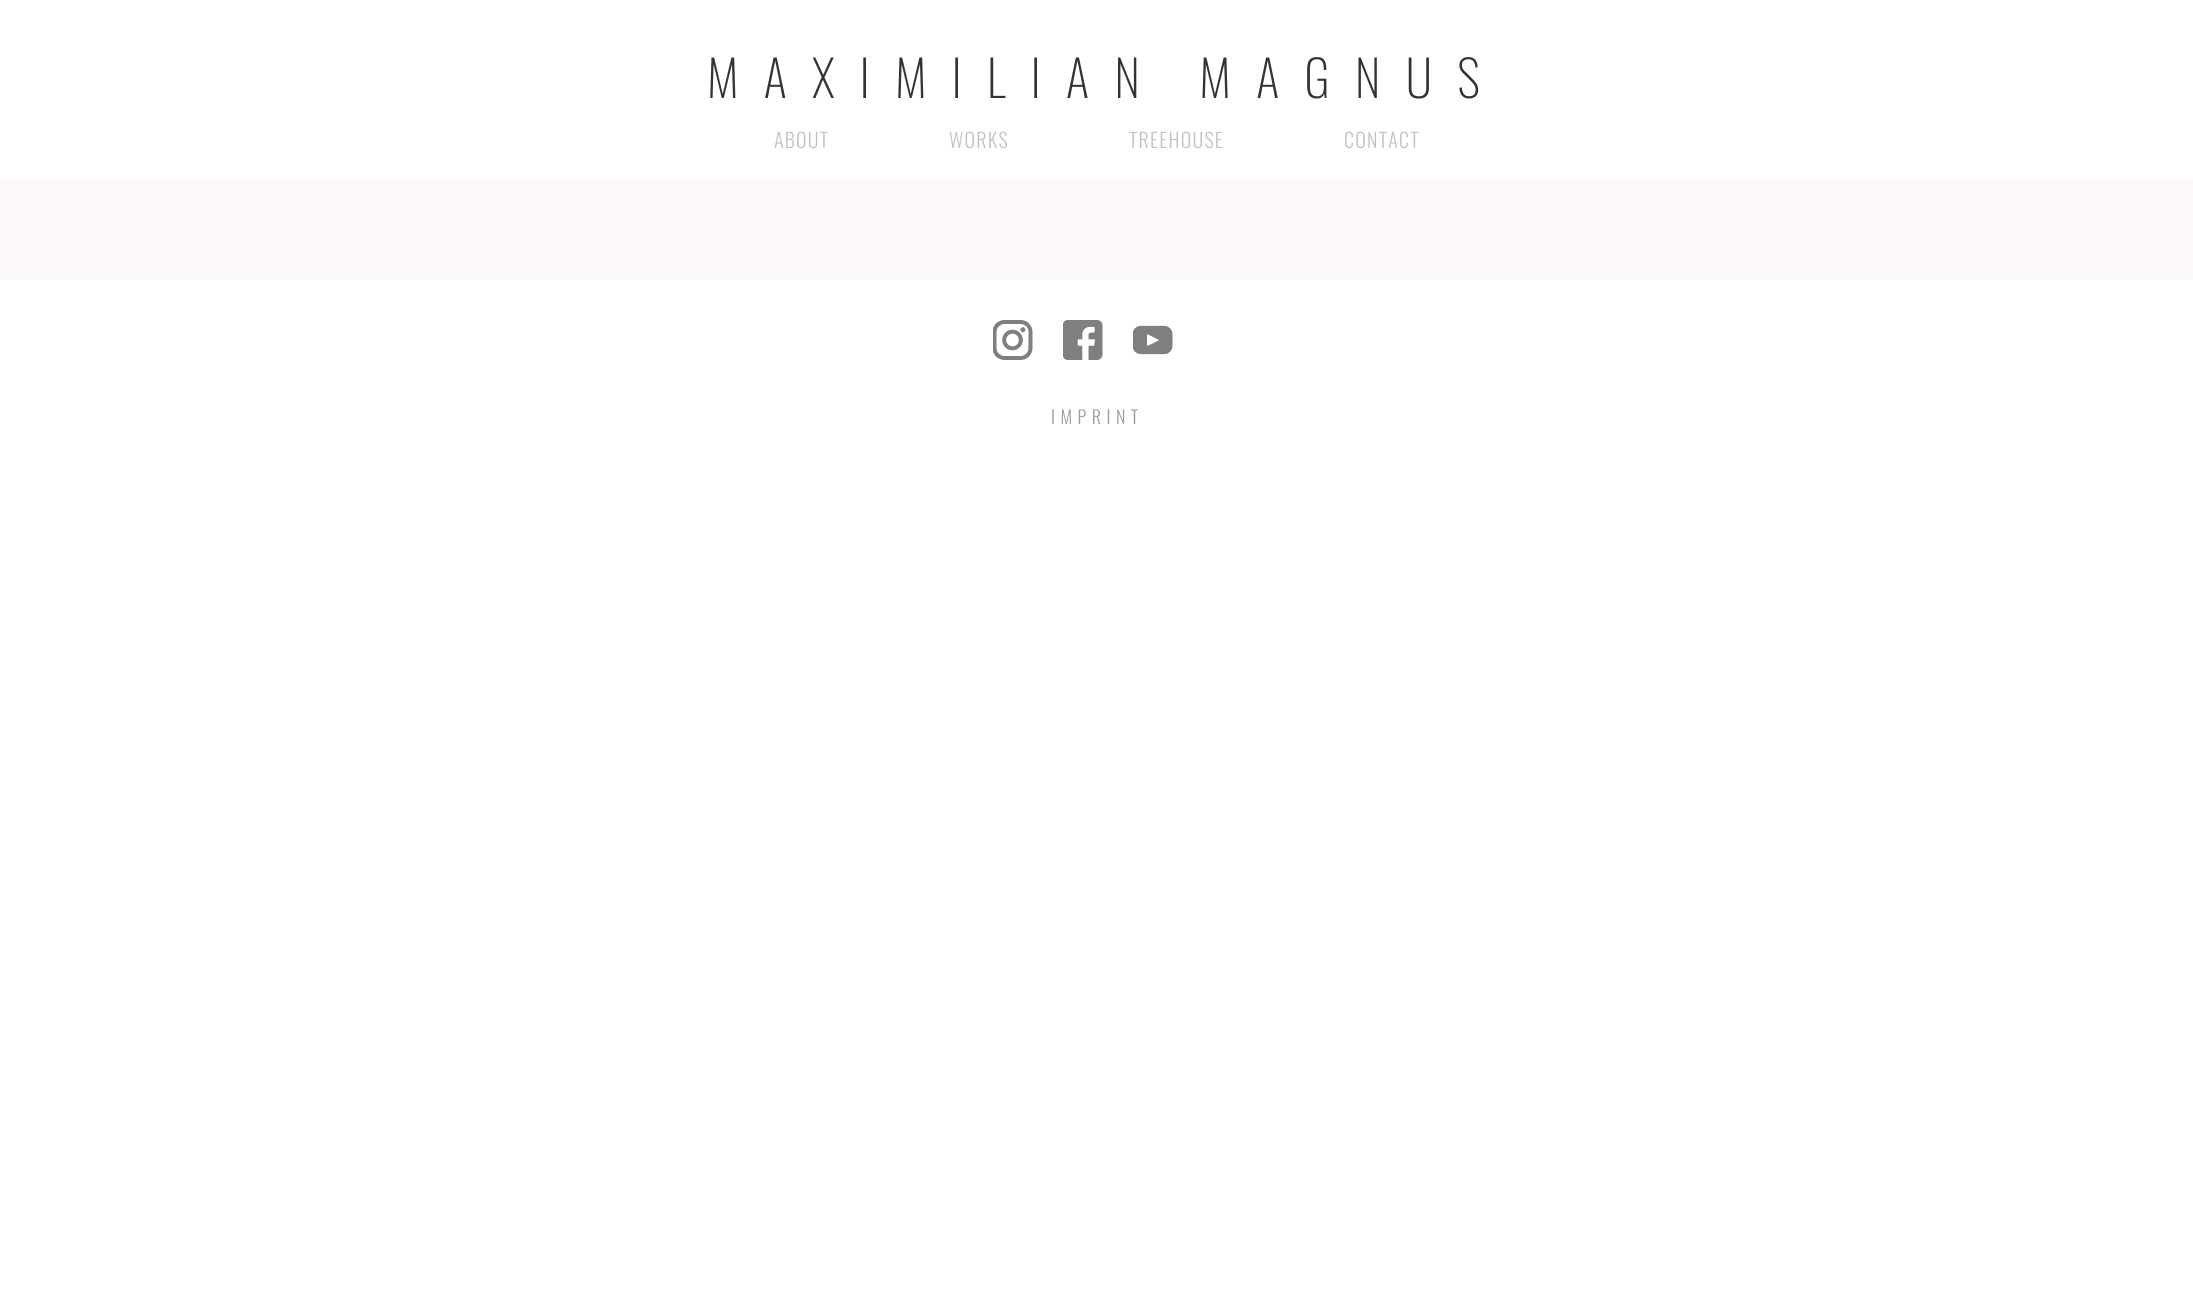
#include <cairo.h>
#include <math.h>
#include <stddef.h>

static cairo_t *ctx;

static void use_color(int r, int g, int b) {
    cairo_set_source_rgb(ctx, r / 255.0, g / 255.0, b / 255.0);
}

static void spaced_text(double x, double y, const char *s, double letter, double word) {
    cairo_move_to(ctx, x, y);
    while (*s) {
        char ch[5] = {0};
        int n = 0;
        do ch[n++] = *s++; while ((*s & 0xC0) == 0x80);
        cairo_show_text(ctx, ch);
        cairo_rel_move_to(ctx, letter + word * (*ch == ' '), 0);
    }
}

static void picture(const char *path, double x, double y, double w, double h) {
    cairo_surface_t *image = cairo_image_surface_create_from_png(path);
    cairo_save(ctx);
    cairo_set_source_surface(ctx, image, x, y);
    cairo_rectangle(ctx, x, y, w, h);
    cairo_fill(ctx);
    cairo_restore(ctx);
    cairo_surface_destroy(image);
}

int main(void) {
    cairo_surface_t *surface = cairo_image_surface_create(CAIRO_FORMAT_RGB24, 2193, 1302);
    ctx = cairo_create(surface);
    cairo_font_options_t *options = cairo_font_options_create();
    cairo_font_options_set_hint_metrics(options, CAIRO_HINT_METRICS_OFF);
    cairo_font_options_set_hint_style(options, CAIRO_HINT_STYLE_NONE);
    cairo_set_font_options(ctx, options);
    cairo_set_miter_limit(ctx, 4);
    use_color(255, 255, 255);
    cairo_paint(ctx);
    cairo_select_font_face(ctx, "Oswald ExtraLight", CAIRO_FONT_SLANT_NORMAL, CAIRO_FONT_WEIGHT_NORMAL);
    cairo_set_font_size(ctx, 50);
    use_color(51, 51, 51);
    spaced_text(707, 98, "MAXIMILIAN MAGNUS", 25, 0);
    cairo_select_font_face(ctx, "Oswald Light", CAIRO_FONT_SLANT_NORMAL, CAIRO_FONT_WEIGHT_NORMAL);
    cairo_set_font_size(ctx, 20);
    use_color(194, 194, 194);
    spaced_text(774, 148, "ABOUT", 1.25, 0);
    spaced_text(949, 148, "WORKS", 1.25, 0);
    spaced_text(1129, 148, "TREEHOUSE", 1.25, 0);
    spaced_text(1344, 148, "CONTACT", 1.25, 0);
    use_color(251, 248, 247);
    cairo_rectangle(ctx, 0, 180, 2193, 100);
    cairo_fill(ctx);
    picture("img1.png", 993, 320, 40, 40);
    picture("img2.png", 1063, 320, 40, 40);
    picture("img3.png", 1133, 325, 40, 30);
    cairo_set_font_size(ctx, 18);
    use_color(153, 153, 153);
    spaced_text(1051, 424, "IMPRINT", 5.5, 0);
    cairo_surface_write_to_png(surface, "result.png");
    cairo_font_options_destroy(options);
    cairo_destroy(ctx);
    cairo_surface_destroy(surface);
    return 0;
}
